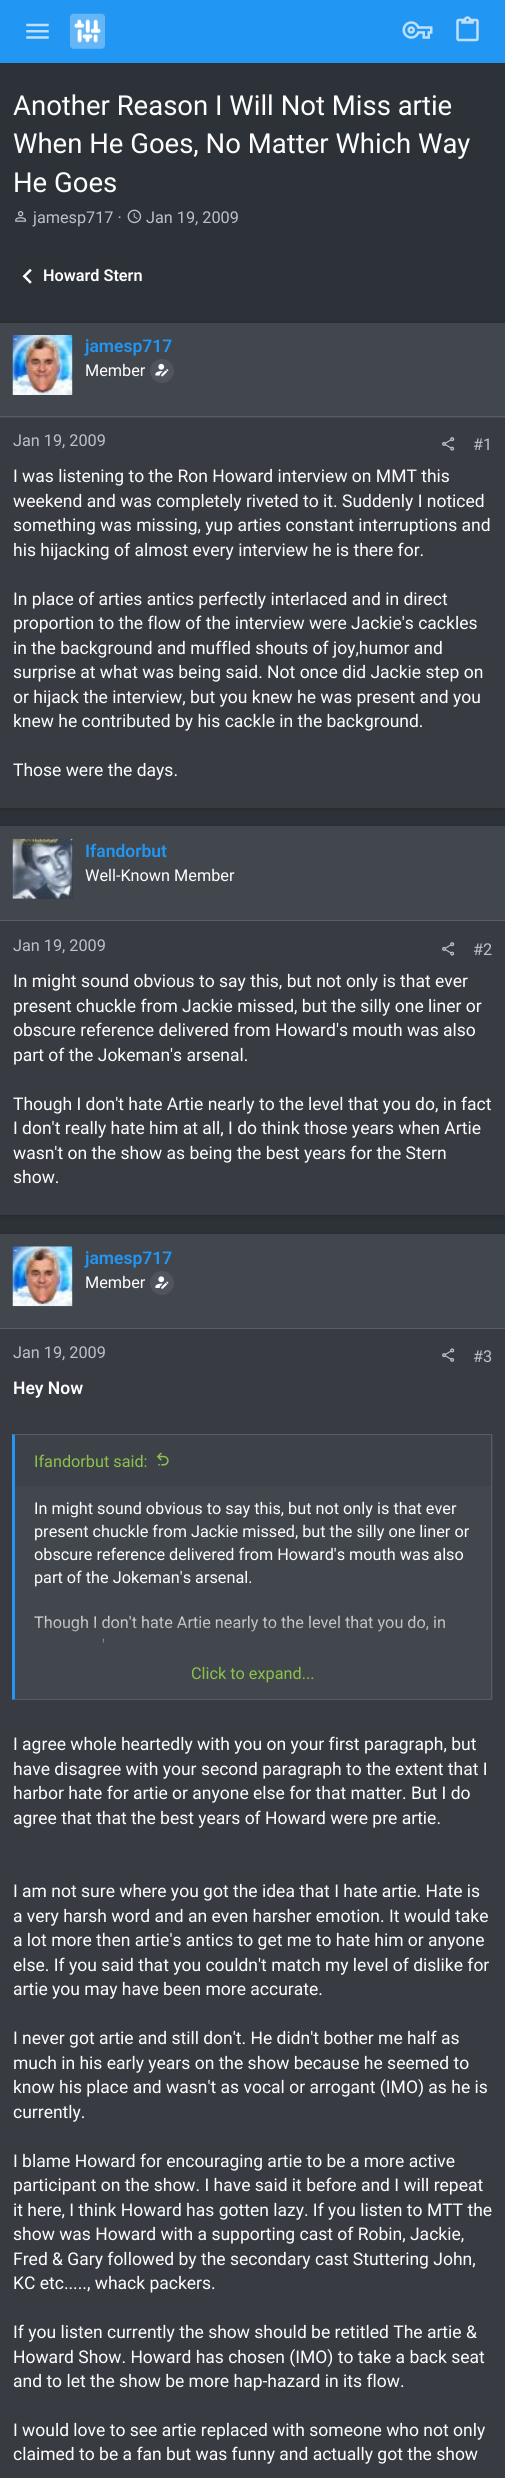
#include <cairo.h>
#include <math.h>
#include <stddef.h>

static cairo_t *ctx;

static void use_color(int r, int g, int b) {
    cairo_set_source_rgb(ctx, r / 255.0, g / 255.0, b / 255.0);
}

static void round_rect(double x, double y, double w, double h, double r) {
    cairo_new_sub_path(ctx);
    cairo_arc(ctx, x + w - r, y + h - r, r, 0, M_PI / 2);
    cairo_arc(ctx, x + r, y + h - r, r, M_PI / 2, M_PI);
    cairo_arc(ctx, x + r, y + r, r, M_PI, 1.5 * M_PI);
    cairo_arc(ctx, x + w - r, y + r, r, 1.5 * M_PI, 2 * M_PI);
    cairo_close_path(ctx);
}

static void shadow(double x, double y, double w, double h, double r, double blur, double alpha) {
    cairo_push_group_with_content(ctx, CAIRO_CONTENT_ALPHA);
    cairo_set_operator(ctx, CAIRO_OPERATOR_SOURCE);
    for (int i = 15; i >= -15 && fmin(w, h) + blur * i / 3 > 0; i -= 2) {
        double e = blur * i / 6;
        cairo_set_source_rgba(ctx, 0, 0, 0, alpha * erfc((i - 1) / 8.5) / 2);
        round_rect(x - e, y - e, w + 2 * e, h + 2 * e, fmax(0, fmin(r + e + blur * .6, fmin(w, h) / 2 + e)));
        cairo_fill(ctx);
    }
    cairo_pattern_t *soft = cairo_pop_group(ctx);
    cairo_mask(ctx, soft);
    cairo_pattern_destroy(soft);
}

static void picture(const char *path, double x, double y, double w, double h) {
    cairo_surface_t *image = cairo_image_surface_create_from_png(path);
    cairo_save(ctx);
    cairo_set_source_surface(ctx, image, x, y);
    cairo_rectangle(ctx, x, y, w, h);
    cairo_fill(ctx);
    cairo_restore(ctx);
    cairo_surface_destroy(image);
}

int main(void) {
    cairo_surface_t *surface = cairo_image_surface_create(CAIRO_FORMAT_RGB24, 505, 2478);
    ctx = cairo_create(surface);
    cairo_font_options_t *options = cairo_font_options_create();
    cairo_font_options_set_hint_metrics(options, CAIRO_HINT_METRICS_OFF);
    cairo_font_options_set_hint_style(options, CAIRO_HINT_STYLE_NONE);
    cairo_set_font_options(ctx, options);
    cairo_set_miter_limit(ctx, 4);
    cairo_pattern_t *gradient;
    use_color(45, 50, 56);
    cairo_paint(ctx);
    use_color(33, 150, 243);
    cairo_rectangle(ctx, 0, 0, 505, 63);
    cairo_fill(ctx);
    picture("img1.png", 26, 23, 23, 16);
    picture("img2.png", 70, 13, 35, 36);
    picture("img3.png", 402, 21, 31, 18);
    picture("img4.png", 456, 16, 23, 26);
    cairo_select_font_face(ctx, "Roboto", CAIRO_FONT_SLANT_NORMAL, CAIRO_FONT_WEIGHT_NORMAL);
    cairo_set_font_size(ctx, 27.5);
    use_color(255, 255, 255);
    cairo_move_to(ctx, 13, 115);
    cairo_show_text(ctx, "Another Reason I Will Not Miss artie");
    cairo_move_to(ctx, 13, 153);
    cairo_show_text(ctx, "When He Goes, No Matter Which Way");
    cairo_move_to(ctx, 13, 192);
    cairo_show_text(ctx, "He Goes");
    picture("img5.png", 15, 211, 12, 11);
    cairo_set_font_size(ctx, 16.25);
    use_color(188, 192, 199);
    cairo_move_to(ctx, 33, 223);
    cairo_show_text(ctx, "jamesp717 ·");
    picture("img6.png", 127, 209, 15, 15);
    cairo_move_to(ctx, 146, 223);
    cairo_show_text(ctx, "Jan 19, 2009");
    picture("img7.png", 22, 268, 10, 16);
    cairo_select_font_face(ctx, "Roboto SemiBold", CAIRO_FONT_SLANT_NORMAL, CAIRO_FONT_WEIGHT_NORMAL);
    use_color(255, 255, 255);
    cairo_move_to(ctx, 43, 281);
    cairo_show_text(ctx, "Howard Stern");
    use_color(0, 0, 0);
    shadow(0, 324, 505, 485, 0, 3, 0.2);
    use_color(56, 60, 66);
    cairo_rectangle(ctx, 0, 418, 505, 390);
    cairo_fill(ctx);
    use_color(66, 70, 77);
    cairo_rectangle(ctx, 0, 323, 505, 95);
    cairo_fill(ctx);
    use_color(89, 92, 98);
    cairo_rectangle(ctx, 0, 416, 505, 1);
    cairo_fill(ctx);
    use_color(56, 60, 66);
    cairo_rectangle(ctx, 72, 335, 1, 60);
    cairo_fill(ctx);
    picture("img8.png", 12, 335, 61, 60);
    cairo_set_font_size(ctx, 17.5);
    use_color(33, 150, 243);
    cairo_move_to(ctx, 85, 352);
    cairo_show_text(ctx, "jamesp717");
    cairo_select_font_face(ctx, "Roboto", CAIRO_FONT_SLANT_NORMAL, CAIRO_FONT_WEIGHT_NORMAL);
    cairo_set_font_size(ctx, 16.25);
    use_color(255, 255, 255);
    cairo_move_to(ctx, 85, 376);
    cairo_show_text(ctx, "Member");
    use_color(79, 84, 94);
    cairo_new_path(ctx);
    cairo_arc(ctx, 162, 371, 12, 0, 2 * M_PI);
    cairo_fill(ctx);
    picture("img9.png", 155, 363, 14, 14);
    use_color(188, 192, 199);
    cairo_move_to(ctx, 13, 446);
    cairo_show_text(ctx, "Jan 19, 2009");
    picture("img10.png", 442, 437, 13, 14);
    cairo_move_to(ctx, 473, 450);
    cairo_show_text(ctx, "#1");
    cairo_set_font_size(ctx, 17.5);
    use_color(255, 255, 255);
    cairo_move_to(ctx, 13, 482);
    cairo_show_text(ctx, "I was listening to the Ron Howard interview on MMT this");
    cairo_move_to(ctx, 13, 507);
    cairo_show_text(ctx, "weekend and was completely riveted to it. Suddenly I noticed");
    cairo_move_to(ctx, 13, 531);
    cairo_show_text(ctx, "something was missing, yup arties constant interruptions and");
    cairo_move_to(ctx, 13, 556);
    cairo_show_text(ctx, "his hijacking of almost every interview he is there for.");
    cairo_move_to(ctx, 13, 605);
    cairo_show_text(ctx, "In place of arties antics perfectly interlaced and in direct");
    cairo_move_to(ctx, 13, 629);
    cairo_show_text(ctx, "proportion to the flow of the interview were Jackie's cackles");
    cairo_move_to(ctx, 13, 654);
    cairo_show_text(ctx, "in the background and muffled shouts of joy,humor and");
    cairo_move_to(ctx, 13, 678);
    cairo_show_text(ctx, "surprise at what was being said. Not once did Jackie step on");
    cairo_move_to(ctx, 13, 703);
    cairo_show_text(ctx, "or hijack the interview, but you knew he was present and you");
    cairo_move_to(ctx, 13, 727);
    cairo_show_text(ctx, "knew he contributed by his cackle in the background.");
    cairo_move_to(ctx, 13, 776);
    cairo_show_text(ctx, "Those were the days.");
    use_color(0, 0, 0);
    shadow(0, 828, 505, 388, 0, 3, 0.2);
    use_color(56, 60, 66);
    cairo_rectangle(ctx, 0, 921, 505, 294);
    cairo_fill(ctx);
    use_color(66, 70, 77);
    cairo_rectangle(ctx, 0, 826, 505, 94);
    cairo_fill(ctx);
    use_color(89, 92, 98);
    cairo_rectangle(ctx, 0, 920, 505, 1);
    cairo_fill(ctx);
    use_color(56, 60, 66);
    cairo_rectangle(ctx, 13, 839, 60, 60);
    cairo_fill(ctx);
    picture("img11.png", 12, 838, 61, 61);
    cairo_select_font_face(ctx, "Roboto SemiBold", CAIRO_FONT_SLANT_NORMAL, CAIRO_FONT_WEIGHT_NORMAL);
    use_color(33, 150, 243);
    cairo_move_to(ctx, 85, 857);
    cairo_show_text(ctx, "Ifandorbut");
    cairo_select_font_face(ctx, "Roboto", CAIRO_FONT_SLANT_NORMAL, CAIRO_FONT_WEIGHT_NORMAL);
    cairo_set_font_size(ctx, 16.25);
    use_color(255, 255, 255);
    cairo_move_to(ctx, 85, 881);
    cairo_show_text(ctx, "Well-Known Member");
    use_color(188, 192, 199);
    cairo_move_to(ctx, 13, 951);
    cairo_show_text(ctx, "Jan 19, 2009");
    picture("img10.png", 442, 942, 13, 14);
    cairo_move_to(ctx, 473, 955);
    cairo_show_text(ctx, "#2");
    cairo_set_font_size(ctx, 17.5);
    use_color(255, 255, 255);
    cairo_move_to(ctx, 13, 987);
    cairo_show_text(ctx, "In might sound obvious to say this, but not only is that ever");
    cairo_move_to(ctx, 13, 1012);
    cairo_show_text(ctx, "present chuckle from Jackie missed, but the silly one liner or");
    cairo_move_to(ctx, 13, 1036);
    cairo_show_text(ctx, "obscure reference delivered from Howard's mouth was also");
    cairo_move_to(ctx, 13, 1061);
    cairo_show_text(ctx, "part of the Jokeman's arsenal.");
    cairo_move_to(ctx, 13, 1110);
    cairo_show_text(ctx, "Though I don't hate Artie nearly to the level that you do, in fact");
    cairo_move_to(ctx, 13, 1134);
    cairo_show_text(ctx, "I don't really hate him at all, I do think those years when Artie");
    cairo_move_to(ctx, 13, 1159);
    cairo_show_text(ctx, "wasn't on the show as being the best years for the Stern");
    cairo_move_to(ctx, 13, 1183);
    cairo_show_text(ctx, "show.");
    use_color(0, 0, 0);
    shadow(0, 1235, 505, 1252, 0, 3, 0.2);
    use_color(56, 60, 66);
    cairo_rectangle(ctx, 0, 1329, 505, 1149);
    cairo_fill(ctx);
    use_color(66, 70, 77);
    cairo_rectangle(ctx, 0, 1234, 505, 94);
    cairo_fill(ctx);
    use_color(89, 92, 98);
    cairo_rectangle(ctx, 0, 1328, 505, 1);
    cairo_fill(ctx);
    use_color(56, 60, 66);
    cairo_rectangle(ctx, 13, 1246, 60, 60);
    cairo_fill(ctx);
    picture("img12.png", 12, 1246, 61, 61);
    cairo_select_font_face(ctx, "Roboto SemiBold", CAIRO_FONT_SLANT_NORMAL, CAIRO_FONT_WEIGHT_NORMAL);
    use_color(33, 150, 243);
    cairo_move_to(ctx, 85, 1264);
    cairo_show_text(ctx, "jamesp717");
    cairo_select_font_face(ctx, "Roboto", CAIRO_FONT_SLANT_NORMAL, CAIRO_FONT_WEIGHT_NORMAL);
    cairo_set_font_size(ctx, 16.25);
    use_color(255, 255, 255);
    cairo_move_to(ctx, 85, 1288);
    cairo_show_text(ctx, "Member");
    use_color(79, 84, 94);
    cairo_new_path(ctx);
    cairo_arc(ctx, 162, 1283, 12, 0, 2 * M_PI);
    cairo_fill(ctx);
    picture("img13.png", 155, 1276, 14, 13);
    use_color(188, 192, 199);
    cairo_move_to(ctx, 13, 1358);
    cairo_show_text(ctx, "Jan 19, 2009");
    picture("img14.png", 442, 1348, 13, 14);
    cairo_move_to(ctx, 473, 1362);
    cairo_show_text(ctx, "#3");
    cairo_select_font_face(ctx, "Roboto SemiBold", CAIRO_FONT_SLANT_NORMAL, CAIRO_FONT_WEIGHT_NORMAL);
    cairo_set_font_size(ctx, 17.5);
    use_color(255, 255, 255);
    cairo_move_to(ctx, 13, 1394);
    cairo_show_text(ctx, "Hey Now");
    use_color(66, 70, 77);
    cairo_rectangle(ctx, 13, 1434, 480, 266);
    cairo_fill(ctx);
    use_color(89, 92, 98);
    cairo_new_path(ctx);
    cairo_move_to(ctx, 12, 1434);
    cairo_line_to(ctx, 492, 1434);
    cairo_line_to(ctx, 491, 1435);
    cairo_line_to(ctx, 15, 1435);
    cairo_close_path(ctx);
    cairo_fill(ctx);
    cairo_set_source_rgba(ctx, 1, 1, 1, 0.12);
    cairo_new_path(ctx);
    cairo_move_to(ctx, 492, 1434);
    cairo_line_to(ctx, 492, 1700);
    cairo_line_to(ctx, 491, 1699);
    cairo_line_to(ctx, 491, 1435);
    cairo_close_path(ctx);
    cairo_fill(ctx);
    cairo_new_path(ctx);
    cairo_move_to(ctx, 492, 1700);
    cairo_line_to(ctx, 12, 1700);
    cairo_line_to(ctx, 15, 1699);
    cairo_line_to(ctx, 491, 1699);
    cairo_close_path(ctx);
    cairo_fill(ctx);
    use_color(33, 150, 243);
    cairo_new_path(ctx);
    cairo_move_to(ctx, 12, 1700);
    cairo_line_to(ctx, 12, 1434);
    cairo_line_to(ctx, 15, 1435);
    cairo_line_to(ctx, 15, 1699);
    cairo_close_path(ctx);
    cairo_fill(ctx);
    use_color(61, 65, 72);
    cairo_rectangle(ctx, 15, 1435, 476, 51);
    cairo_fill(ctx);
    cairo_select_font_face(ctx, "Roboto", CAIRO_FONT_SLANT_NORMAL, CAIRO_FONT_WEIGHT_NORMAL);
    cairo_set_font_size(ctx, 16.25);
    use_color(139, 195, 74);
    cairo_move_to(ctx, 34, 1467);
    cairo_show_text(ctx, "Ifandorbut said:");
    picture("img15.png", 156, 1452, 13, 14);
    use_color(255, 255, 255);
    cairo_move_to(ctx, 34, 1514);
    cairo_show_text(ctx, "In might sound obvious to say this, but not only is that ever");
    cairo_move_to(ctx, 34, 1537);
    cairo_show_text(ctx, "present chuckle from Jackie missed, but the silly one liner or");
    cairo_move_to(ctx, 34, 1560);
    cairo_show_text(ctx, "obscure reference delivered from Howard's mouth was also");
    cairo_move_to(ctx, 34, 1583);
    cairo_show_text(ctx, "part of the Jokeman's arsenal.");
    cairo_move_to(ctx, 34, 1628);
    cairo_show_text(ctx, "Though I don't hate Artie nearly to the level that you do, in");
    cairo_move_to(ctx, 102, 1651);
    cairo_show_text(ctx, "'");
    gradient = cairo_pattern_create_linear(253, 1605, 253, 1699);
    cairo_pattern_add_color_stop_rgba(gradient, 0, 0.259, 0.275, 0.302, 0);
    cairo_pattern_add_color_stop_rgba(gradient, 0.6, 0.259, 0.275, 0.302, 1);
    cairo_set_source(ctx, gradient);
    cairo_pattern_destroy(gradient);
    cairo_rectangle(ctx, 34, 1615, 411, 28);
    cairo_fill(ctx);
    use_color(139, 195, 74);
    cairo_move_to(ctx, 191, 1679);
    cairo_show_text(ctx, "Click to expand...");
    cairo_set_font_size(ctx, 17.5);
    use_color(255, 255, 255);
    cairo_move_to(ctx, 13, 1750);
    cairo_show_text(ctx, "I agree whole heartedly with you on your first paragraph, but");
    cairo_move_to(ctx, 13, 1775);
    cairo_show_text(ctx, "have disagree with your second paragraph to the extent that I");
    cairo_move_to(ctx, 13, 1799);
    cairo_show_text(ctx, "harbor hate for artie or anyone else for that matter. But I do");
    cairo_move_to(ctx, 13, 1824);
    cairo_show_text(ctx, "agree that that the best years of Howard were pre artie.");
    cairo_move_to(ctx, 13, 1897);
    cairo_show_text(ctx, "I am not sure where you got the idea that I hate artie. Hate is");
    cairo_move_to(ctx, 13, 1922);
    cairo_show_text(ctx, "a very harsh word and an even harsher emotion. It would take");
    cairo_move_to(ctx, 13, 1946);
    cairo_show_text(ctx, "a lot more then artie's antics to get me to hate him or anyone");
    cairo_move_to(ctx, 13, 1971);
    cairo_show_text(ctx, "else. If you said that you couldn't match my level of dislike for");
    cairo_move_to(ctx, 13, 1995);
    cairo_show_text(ctx, "artie you may have been more accurate.");
    cairo_move_to(ctx, 13, 2044);
    cairo_show_text(ctx, "I never got artie and still don't. He didn't bother me half as");
    cairo_move_to(ctx, 13, 2069);
    cairo_show_text(ctx, "much in his early years on the show because he seemed to");
    cairo_move_to(ctx, 13, 2093);
    cairo_show_text(ctx, "know his place and wasn't as vocal or arrogant (IMO) as he is");
    cairo_move_to(ctx, 13, 2118);
    cairo_show_text(ctx, "currently.");
    cairo_move_to(ctx, 13, 2167);
    cairo_show_text(ctx, "I blame Howard for encouraging artie to be a more active");
    cairo_move_to(ctx, 13, 2191);
    cairo_show_text(ctx, "participant on the show. I have said it before and I will repeat");
    cairo_move_to(ctx, 13, 2216);
    cairo_show_text(ctx, "it here, I think Howard has gotten lazy. If you listen to MTT the");
    cairo_move_to(ctx, 13, 2240);
    cairo_show_text(ctx, "show was Howard with a supporting cast of Robin, Jackie,");
    cairo_move_to(ctx, 13, 2265);
    cairo_show_text(ctx, "Fred & Gary followed by the secondary cast Stuttering John,");
    cairo_move_to(ctx, 13, 2289);
    cairo_show_text(ctx, "KC etc....., whack packers.");
    cairo_move_to(ctx, 13, 2338);
    cairo_show_text(ctx, "If you listen currently the show should be retitled The artie &");
    cairo_move_to(ctx, 13, 2363);
    cairo_show_text(ctx, "Howard Show. Howard has chosen (IMO) to take a back seat");
    cairo_move_to(ctx, 13, 2387);
    cairo_show_text(ctx, "and to let the show be more hap-hazard in its flow.");
    cairo_move_to(ctx, 13, 2436);
    cairo_show_text(ctx, "I would love to see artie replaced with someone who not only");
    cairo_move_to(ctx, 13, 2460);
    cairo_show_text(ctx, "claimed to be a fan but was funny and actually got the show");
    cairo_surface_write_to_png(surface, "result.png");
    cairo_font_options_destroy(options);
    cairo_destroy(ctx);
    cairo_surface_destroy(surface);
    return 0;
}
